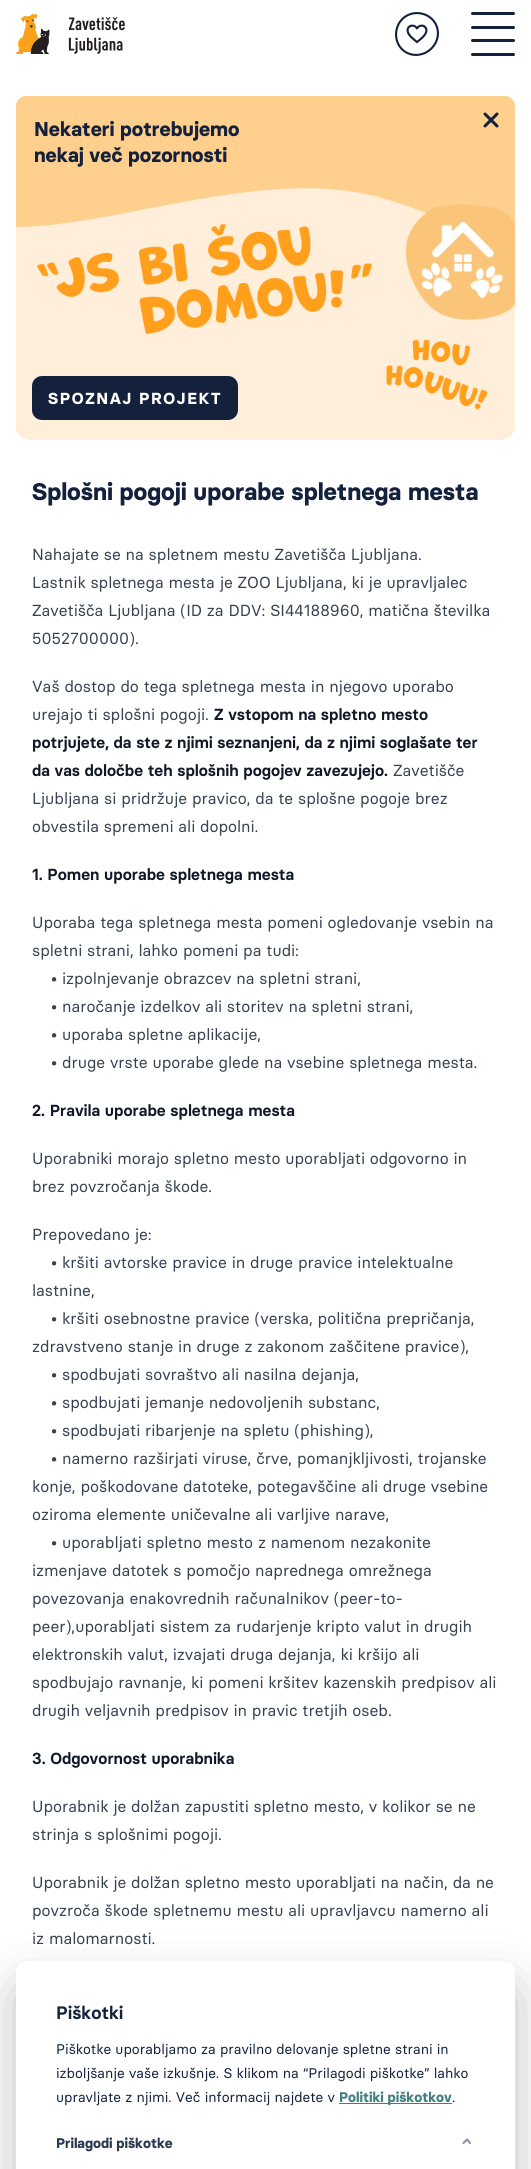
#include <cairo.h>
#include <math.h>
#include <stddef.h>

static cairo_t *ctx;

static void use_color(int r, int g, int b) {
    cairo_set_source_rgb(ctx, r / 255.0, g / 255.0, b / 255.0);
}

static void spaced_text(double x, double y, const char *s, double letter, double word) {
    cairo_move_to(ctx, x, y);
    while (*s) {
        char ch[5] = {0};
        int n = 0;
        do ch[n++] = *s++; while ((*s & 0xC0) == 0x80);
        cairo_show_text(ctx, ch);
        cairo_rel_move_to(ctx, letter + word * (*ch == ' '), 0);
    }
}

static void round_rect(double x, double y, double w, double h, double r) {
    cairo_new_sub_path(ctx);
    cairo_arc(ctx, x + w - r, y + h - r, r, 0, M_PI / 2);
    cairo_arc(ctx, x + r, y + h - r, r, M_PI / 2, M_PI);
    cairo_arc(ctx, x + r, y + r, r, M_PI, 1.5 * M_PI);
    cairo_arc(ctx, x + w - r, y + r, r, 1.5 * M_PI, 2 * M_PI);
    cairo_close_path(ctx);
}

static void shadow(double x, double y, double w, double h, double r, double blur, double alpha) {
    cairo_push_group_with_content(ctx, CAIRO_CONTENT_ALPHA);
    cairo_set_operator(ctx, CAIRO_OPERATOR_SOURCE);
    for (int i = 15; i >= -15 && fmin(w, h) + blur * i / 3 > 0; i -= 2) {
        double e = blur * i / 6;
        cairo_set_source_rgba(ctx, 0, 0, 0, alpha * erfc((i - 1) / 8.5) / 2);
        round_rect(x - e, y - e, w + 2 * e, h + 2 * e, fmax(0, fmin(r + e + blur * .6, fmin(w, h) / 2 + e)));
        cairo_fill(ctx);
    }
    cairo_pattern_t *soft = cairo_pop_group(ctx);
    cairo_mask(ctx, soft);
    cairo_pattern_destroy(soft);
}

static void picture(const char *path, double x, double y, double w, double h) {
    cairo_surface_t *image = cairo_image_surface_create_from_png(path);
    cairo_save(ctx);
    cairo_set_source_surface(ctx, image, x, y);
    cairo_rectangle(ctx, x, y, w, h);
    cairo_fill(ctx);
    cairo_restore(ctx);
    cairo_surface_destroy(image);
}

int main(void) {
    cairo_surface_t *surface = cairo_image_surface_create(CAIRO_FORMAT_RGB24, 531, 2169);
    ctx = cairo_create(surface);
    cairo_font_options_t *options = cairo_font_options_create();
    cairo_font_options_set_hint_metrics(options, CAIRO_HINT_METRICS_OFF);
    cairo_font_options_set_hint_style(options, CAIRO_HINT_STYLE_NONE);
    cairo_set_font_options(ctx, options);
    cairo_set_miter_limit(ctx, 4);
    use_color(255, 255, 255);
    cairo_paint(ctx);
    picture("img1.png", 16, 14, 109, 40);
    picture("img2.png", 395, 12, 44, 44);
    use_color(20, 33, 61);
    round_rect(471, 12, 44, 3, 1.5);
    cairo_fill(ctx);
    round_rect(471, 26, 44, 3, 1.5);
    cairo_fill(ctx);
    round_rect(471, 39, 44, 3, 1.5);
    cairo_fill(ctx);
    round_rect(471, 53, 44, 3, 1.5);
    cairo_fill(ctx);
    use_color(255, 207, 142);
    round_rect(16, 96, 499, 340, 10);
    cairo_fill(ctx);
    cairo_select_font_face(ctx, "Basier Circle", CAIRO_FONT_SLANT_NORMAL, CAIRO_FONT_WEIGHT_BOLD);
    cairo_set_font_size(ctx, 20);
    use_color(20, 33, 61);
    cairo_move_to(ctx, 34, 136);
    cairo_show_text(ctx, "Nekateri potrebujemo");
    cairo_move_to(ctx, 34, 162);
    cairo_show_text(ctx, "nekaj več pozornosti");
    picture("img3.png", 16, 188, 499, 252);
    cairo_new_path(ctx);
    cairo_move_to(ctx, 497, 126);
    cairo_line_to(ctx, 485, 114);
    cairo_move_to(ctx, 497, 114);
    cairo_line_to(ctx, 485, 126);
    cairo_set_line_width(ctx, 3);
    cairo_set_line_cap(ctx, CAIRO_LINE_CAP_ROUND);
    cairo_stroke(ctx);
    round_rect(32, 376, 206, 44, 10);
    cairo_fill(ctx);
    cairo_set_font_size(ctx, 16);
    use_color(255, 255, 255);
    spaced_text(48, 404, "SPOZNAJ PROJEKT", 1.6, 0);
    cairo_set_font_size(ctx, 24);
    use_color(20, 33, 61);
    cairo_move_to(ctx, 32, 500);
    cairo_show_text(ctx, "Splošni pogoji uporabe spletnega mesta");
    cairo_select_font_face(ctx, "Basier Circle", CAIRO_FONT_SLANT_NORMAL, CAIRO_FONT_WEIGHT_NORMAL);
    cairo_set_font_size(ctx, 16);
    use_color(55, 65, 81);
    cairo_move_to(ctx, 32, 560);
    cairo_show_text(ctx, "Nahajate se na spletnem mestu Zavetišča Ljubljana.");
    cairo_move_to(ctx, 32, 588);
    cairo_show_text(ctx, "Lastnik spletnega mesta je ZOO Ljubljana, ki je upravljalec");
    cairo_move_to(ctx, 32, 616);
    cairo_show_text(ctx, "Zavetišča Ljubljana (ID za DDV: SI44188960, matična številka");
    cairo_move_to(ctx, 32, 644);
    cairo_show_text(ctx, "5052700000).");
    cairo_move_to(ctx, 32, 692);
    cairo_show_text(ctx, "Vaš dostop do tega spletnega mesta in njegovo uporabo");
    cairo_move_to(ctx, 32, 720);
    cairo_show_text(ctx, "urejajo ti splošni pogoji.");
    cairo_select_font_face(ctx, "Basier Circle SemiBold", CAIRO_FONT_SLANT_NORMAL, CAIRO_FONT_WEIGHT_NORMAL);
    use_color(17, 24, 39);
    cairo_move_to(ctx, 214, 720);
    cairo_show_text(ctx, "Z vstopom na spletno mesto");
    cairo_move_to(ctx, 32, 748);
    cairo_show_text(ctx, "potrjujete, da ste z njimi seznanjeni, da z njimi soglašate ter");
    cairo_move_to(ctx, 32, 776);
    cairo_show_text(ctx, "da vas določbe teh splošnih pogojev zavezujejo.");
    cairo_select_font_face(ctx, "Basier Circle", CAIRO_FONT_SLANT_NORMAL, CAIRO_FONT_WEIGHT_NORMAL);
    use_color(55, 65, 81);
    cairo_move_to(ctx, 393, 776);
    cairo_show_text(ctx, "Zavetišče");
    cairo_move_to(ctx, 32, 804);
    cairo_show_text(ctx, "Ljubljana si pridržuje pravico, da te splošne pogoje brez");
    cairo_move_to(ctx, 32, 832);
    cairo_show_text(ctx, "obvestila spremeni ali dopolni.");
    cairo_select_font_face(ctx, "Basier Circle SemiBold", CAIRO_FONT_SLANT_NORMAL, CAIRO_FONT_WEIGHT_NORMAL);
    use_color(17, 24, 39);
    cairo_move_to(ctx, 32, 880);
    cairo_show_text(ctx, "1. Pomen uporabe spletnega mesta");
    cairo_select_font_face(ctx, "Basier Circle", CAIRO_FONT_SLANT_NORMAL, CAIRO_FONT_WEIGHT_NORMAL);
    use_color(55, 65, 81);
    cairo_move_to(ctx, 32, 928);
    cairo_show_text(ctx, "Uporaba tega spletnega mesta pomeni ogledovanje vsebin na");
    cairo_move_to(ctx, 32, 956);
    cairo_show_text(ctx, "spletni strani, lahko pomeni pa tudi:");
    cairo_move_to(ctx, 51, 984);
    cairo_show_text(ctx, "• izpolnjevanje obrazcev na spletni strani,");
    cairo_move_to(ctx, 51, 1012);
    cairo_show_text(ctx, "• naročanje izdelkov ali storitev na spletni strani,");
    cairo_move_to(ctx, 51, 1040);
    cairo_show_text(ctx, "• uporaba spletne aplikacije,");
    cairo_move_to(ctx, 51, 1068);
    cairo_show_text(ctx, "• druge vrste uporabe glede na vsebine spletnega mesta.");
    cairo_select_font_face(ctx, "Basier Circle SemiBold", CAIRO_FONT_SLANT_NORMAL, CAIRO_FONT_WEIGHT_NORMAL);
    use_color(17, 24, 39);
    cairo_move_to(ctx, 32, 1116);
    cairo_show_text(ctx, "2. Pravila uporabe spletnega mesta");
    cairo_select_font_face(ctx, "Basier Circle", CAIRO_FONT_SLANT_NORMAL, CAIRO_FONT_WEIGHT_NORMAL);
    use_color(55, 65, 81);
    cairo_move_to(ctx, 32, 1164);
    cairo_show_text(ctx, "Uporabniki morajo spletno mesto uporabljati odgovorno in");
    cairo_move_to(ctx, 32, 1192);
    cairo_show_text(ctx, "brez povzročanja škode.");
    cairo_move_to(ctx, 32, 1240);
    cairo_show_text(ctx, "Prepovedano je:");
    cairo_move_to(ctx, 51, 1268);
    cairo_show_text(ctx, "• kršiti avtorske pravice in druge pravice intelektualne");
    cairo_move_to(ctx, 32, 1296);
    cairo_show_text(ctx, "lastnine,");
    cairo_move_to(ctx, 51, 1324);
    cairo_show_text(ctx, "• kršiti osebnostne pravice (verska, politična prepričanja,");
    cairo_move_to(ctx, 32, 1352);
    cairo_show_text(ctx, "zdravstveno stanje in druge z zakonom zaščitene pravice),");
    cairo_move_to(ctx, 51, 1380);
    cairo_show_text(ctx, "• spodbujati sovraštvo ali nasilna dejanja,");
    cairo_move_to(ctx, 51, 1408);
    cairo_show_text(ctx, "• spodbujati jemanje nedovoljenih substanc,");
    cairo_move_to(ctx, 51, 1436);
    cairo_show_text(ctx, "• spodbujati ribarjenje na spletu (phishing),");
    cairo_move_to(ctx, 51, 1464);
    cairo_show_text(ctx, "• namerno razširjati viruse, črve, pomanjkljivosti, trojanske");
    cairo_move_to(ctx, 32, 1492);
    cairo_show_text(ctx, "konje, poškodovane datoteke, potegavščine ali druge vsebine");
    cairo_move_to(ctx, 32, 1520);
    cairo_show_text(ctx, "oziroma elemente uničevalne ali varljive narave,");
    cairo_move_to(ctx, 51, 1548);
    cairo_show_text(ctx, "• uporabljati spletno mesto z namenom nezakonite");
    cairo_move_to(ctx, 32, 1576);
    cairo_show_text(ctx, "izmenjave datotek s pomočjo naprednega omrežnega");
    cairo_move_to(ctx, 32, 1604);
    cairo_show_text(ctx, "povezovanja enakovrednih računalnikov (peer-to-");
    cairo_move_to(ctx, 32, 1632);
    cairo_show_text(ctx, "peer),uporabljati sistem za rudarjenje kripto valut in drugih");
    cairo_move_to(ctx, 32, 1660);
    cairo_show_text(ctx, "elektronskih valut, izvajati druga dejanja, ki kršijo ali");
    cairo_move_to(ctx, 32, 1688);
    cairo_show_text(ctx, "spodbujajo ravnanje, ki pomeni kršitev kazenskih predpisov ali");
    cairo_move_to(ctx, 32, 1716);
    cairo_show_text(ctx, "drugih veljavnih predpisov in pravic tretjih oseb.");
    cairo_select_font_face(ctx, "Basier Circle SemiBold", CAIRO_FONT_SLANT_NORMAL, CAIRO_FONT_WEIGHT_NORMAL);
    use_color(17, 24, 39);
    cairo_move_to(ctx, 32, 1764);
    cairo_show_text(ctx, "3. Odgovornost uporabnika");
    cairo_select_font_face(ctx, "Basier Circle", CAIRO_FONT_SLANT_NORMAL, CAIRO_FONT_WEIGHT_NORMAL);
    use_color(55, 65, 81);
    cairo_move_to(ctx, 32, 1812);
    cairo_show_text(ctx, "Uporabnik je dolžan zapustiti spletno mesto, v kolikor se ne");
    cairo_move_to(ctx, 32, 1840);
    cairo_show_text(ctx, "strinja s splošnimi pogoji.");
    cairo_move_to(ctx, 32, 1888);
    cairo_show_text(ctx, "Uporabnik je dolžan spletno mesto uporabljati na način, da ne");
    cairo_move_to(ctx, 32, 1916);
    cairo_show_text(ctx, "povzroča škode spletnemu mestu ali upravljavcu namerno ali");
    cairo_move_to(ctx, 32, 1944);
    cairo_show_text(ctx, "iz malomarnosti.");
    use_color(0, 0, 0);
    shadow(16, 1986, 499, 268, 10, 25, 0.25);
    use_color(255, 255, 255);
    round_rect(16, 1961, 499, 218, 10);
    cairo_fill(ctx);
    cairo_select_font_face(ctx, "Basier Circle SemiBold", CAIRO_FONT_SLANT_NORMAL, CAIRO_FONT_WEIGHT_NORMAL);
    cairo_set_font_size(ctx, 18);
    use_color(20, 33, 61);
    cairo_move_to(ctx, 56, 2019);
    cairo_show_text(ctx, "Piškotki");
    cairo_select_font_face(ctx, "Basier Circle", CAIRO_FONT_SLANT_NORMAL, CAIRO_FONT_WEIGHT_NORMAL);
    cairo_set_font_size(ctx, 14);
    cairo_move_to(ctx, 56, 2054);
    cairo_show_text(ctx, "Piškotke uporabljamo za pravilno delovanje spletne strani in");
    cairo_move_to(ctx, 56, 2078);
    cairo_show_text(ctx, "izboljšanje vaše izkušnje. S klikom na “Prilagodi piškotke” lahko");
    cairo_move_to(ctx, 56, 2102);
    cairo_show_text(ctx, "upravljate z njimi. Več informacij najdete v");
    use_color(65, 128, 128);
    cairo_rectangle(ctx, 339, 2103, 113, 1);
    cairo_fill(ctx);
    cairo_select_font_face(ctx, "Basier Circle", CAIRO_FONT_SLANT_NORMAL, CAIRO_FONT_WEIGHT_BOLD);
    cairo_move_to(ctx, 339, 2102);
    cairo_show_text(ctx, "Politiki piškotkov");
    cairo_select_font_face(ctx, "Basier Circle", CAIRO_FONT_SLANT_NORMAL, CAIRO_FONT_WEIGHT_NORMAL);
    use_color(20, 33, 61);
    cairo_move_to(ctx, 452, 2102);
    cairo_show_text(ctx, ".");
    cairo_select_font_face(ctx, "Basier Circle", CAIRO_FONT_SLANT_NORMAL, CAIRO_FONT_WEIGHT_BOLD);
    use_color(44, 55, 81);
    cairo_move_to(ctx, 56, 2148);
    cairo_show_text(ctx, "Prilagodi piškotke");
    cairo_new_path(ctx);
    cairo_move_to(ctx, 470, 2143);
    cairo_line_to(ctx, 467, 2139.5);
    cairo_line_to(ctx, 463.5, 2143);
    use_color(138, 144, 158);
    cairo_set_line_width(ctx, 2);
    cairo_set_line_join(ctx, CAIRO_LINE_JOIN_ROUND);
    cairo_stroke(ctx);
    cairo_surface_write_to_png(surface, "result.png");
    cairo_font_options_destroy(options);
    cairo_destroy(ctx);
    cairo_surface_destroy(surface);
    return 0;
}
